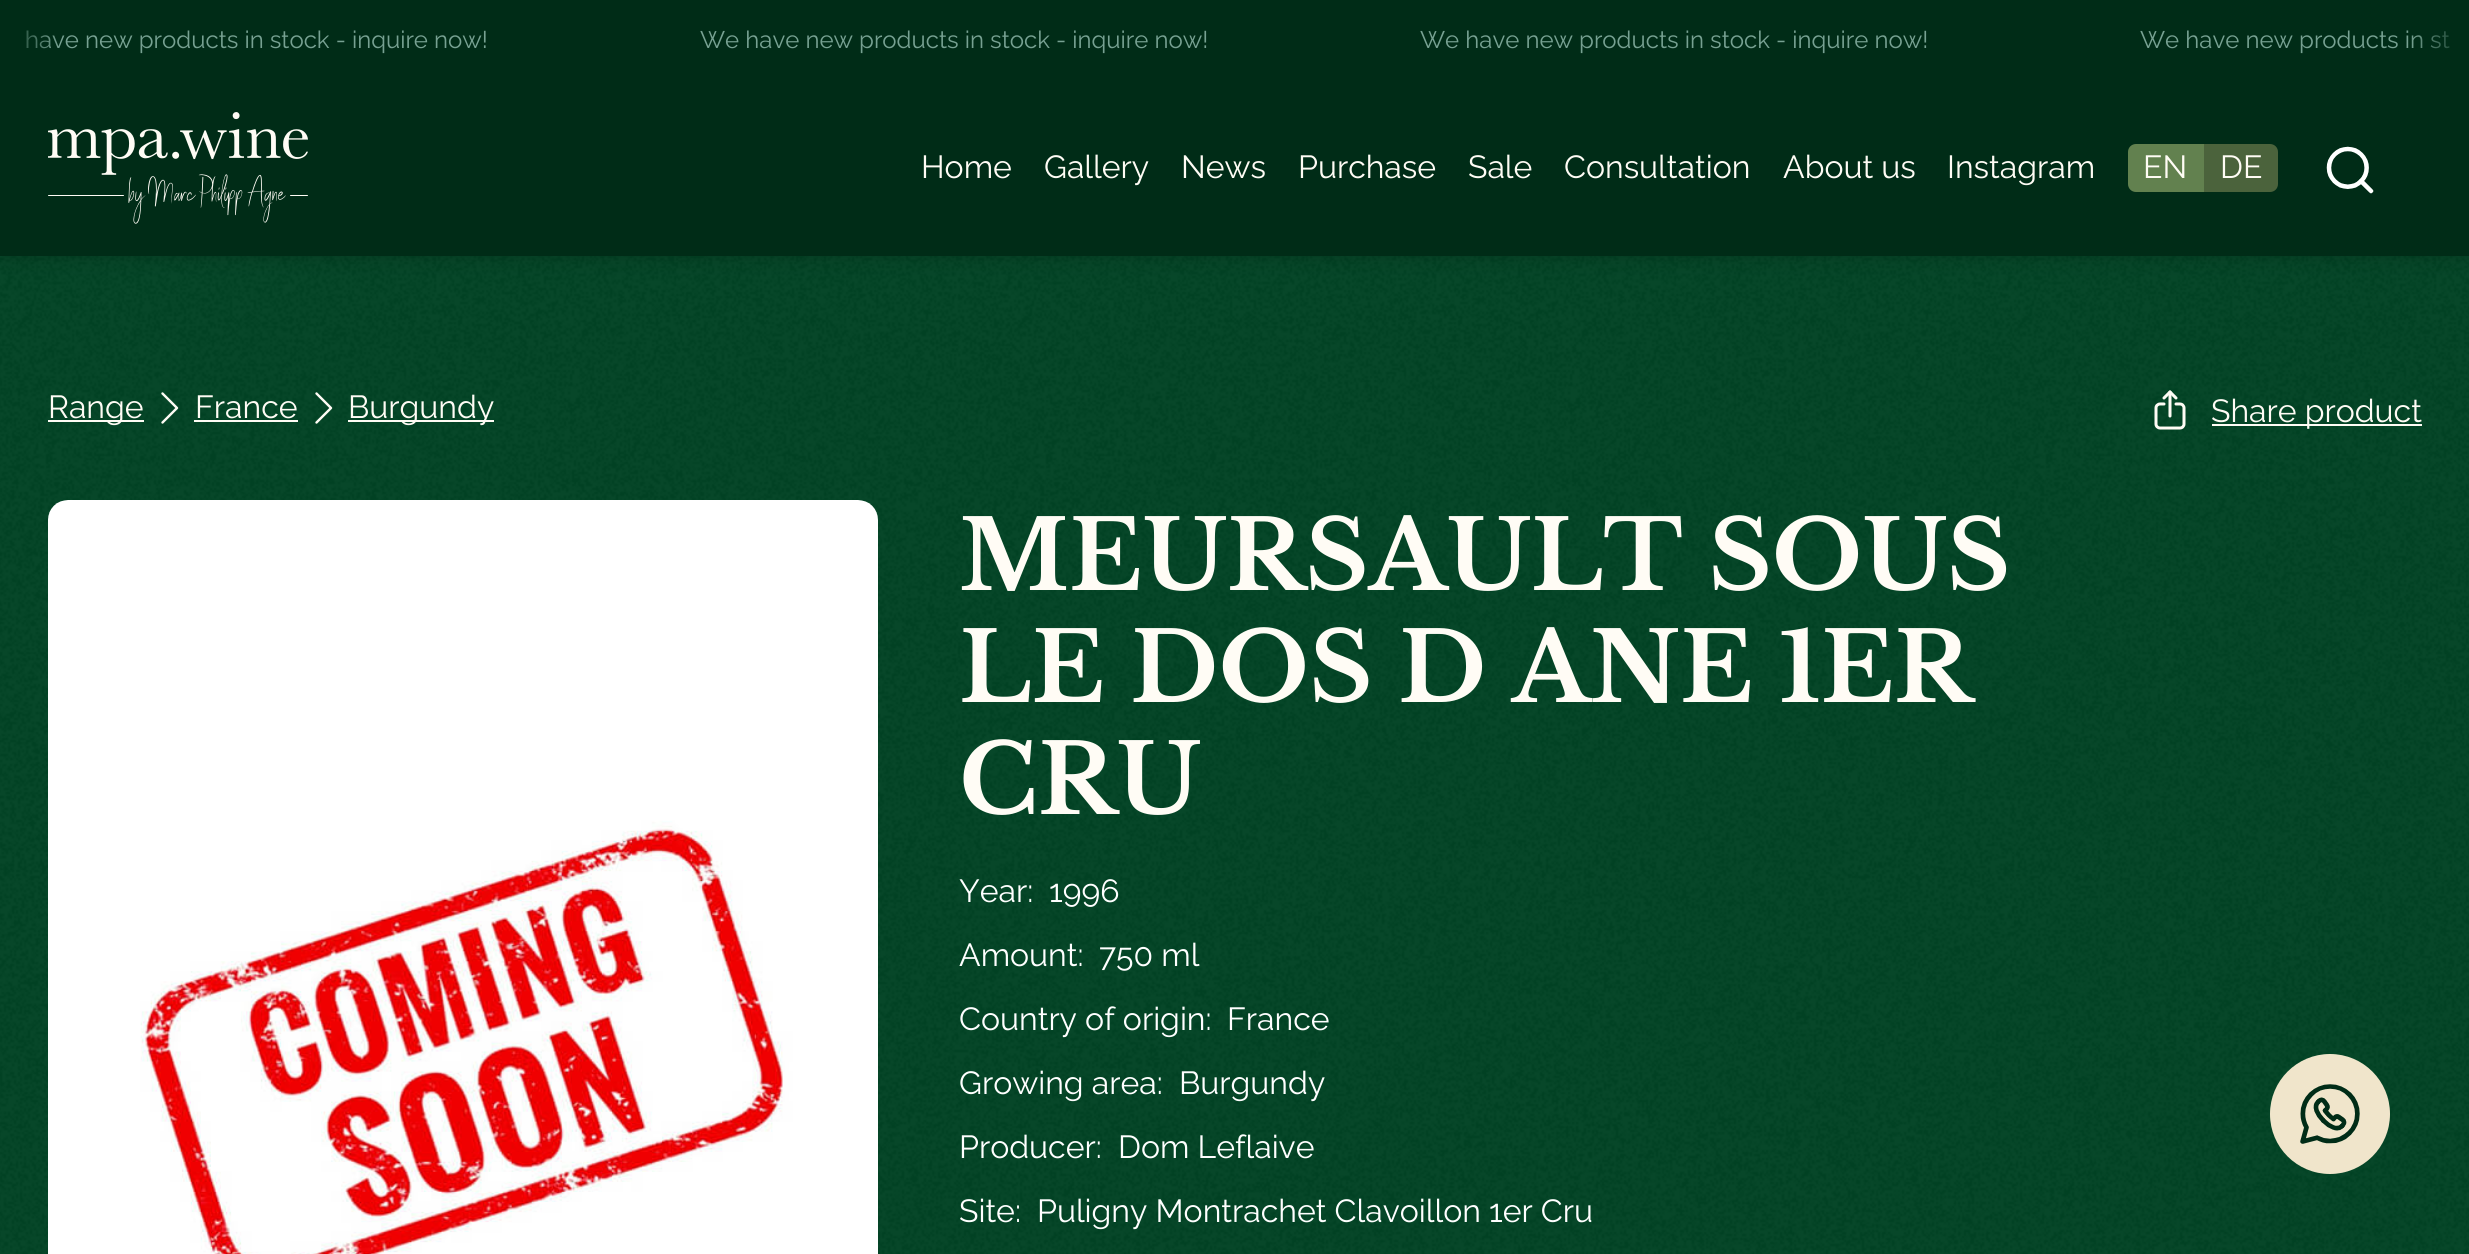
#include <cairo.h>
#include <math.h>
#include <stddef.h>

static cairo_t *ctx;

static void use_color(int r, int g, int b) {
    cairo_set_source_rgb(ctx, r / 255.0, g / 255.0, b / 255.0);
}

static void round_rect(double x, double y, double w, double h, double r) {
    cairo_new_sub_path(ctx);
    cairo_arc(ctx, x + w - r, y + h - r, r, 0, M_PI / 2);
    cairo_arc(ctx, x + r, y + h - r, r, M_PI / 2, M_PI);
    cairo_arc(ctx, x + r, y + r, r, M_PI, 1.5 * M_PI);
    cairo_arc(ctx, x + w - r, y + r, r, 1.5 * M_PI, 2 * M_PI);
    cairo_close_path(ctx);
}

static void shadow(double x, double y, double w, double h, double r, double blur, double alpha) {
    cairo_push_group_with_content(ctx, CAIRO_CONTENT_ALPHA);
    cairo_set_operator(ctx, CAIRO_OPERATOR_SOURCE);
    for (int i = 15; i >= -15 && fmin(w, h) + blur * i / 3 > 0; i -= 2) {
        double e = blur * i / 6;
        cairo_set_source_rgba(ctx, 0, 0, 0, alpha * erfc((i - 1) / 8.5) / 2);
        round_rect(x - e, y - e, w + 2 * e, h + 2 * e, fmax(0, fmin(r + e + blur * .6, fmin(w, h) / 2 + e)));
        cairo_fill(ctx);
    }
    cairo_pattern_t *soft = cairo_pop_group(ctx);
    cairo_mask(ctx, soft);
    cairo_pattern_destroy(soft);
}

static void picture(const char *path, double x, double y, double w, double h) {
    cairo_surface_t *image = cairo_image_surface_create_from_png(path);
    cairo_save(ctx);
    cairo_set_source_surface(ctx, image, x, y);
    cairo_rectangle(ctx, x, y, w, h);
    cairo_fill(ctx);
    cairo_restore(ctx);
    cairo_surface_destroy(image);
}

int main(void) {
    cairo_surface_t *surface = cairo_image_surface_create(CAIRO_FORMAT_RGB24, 2469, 1254);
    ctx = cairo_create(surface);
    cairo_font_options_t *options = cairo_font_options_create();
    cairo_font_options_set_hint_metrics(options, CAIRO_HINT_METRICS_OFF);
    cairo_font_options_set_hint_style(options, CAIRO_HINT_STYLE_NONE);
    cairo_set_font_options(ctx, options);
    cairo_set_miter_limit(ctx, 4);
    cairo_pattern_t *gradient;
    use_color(0, 66, 35);
    cairo_paint(ctx);
    picture("img1.png", 0, 256, 2469, 998);
    use_color(0, 0, 0);
    shadow(0, 0, 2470, 256, 0, 10, 0.2);
    use_color(0, 44, 23);
    cairo_rectangle(ctx, 0, 0, 2469, 256);
    cairo_fill(ctx);
    cairo_select_font_face(ctx, "Raleway", CAIRO_FONT_SLANT_NORMAL, CAIRO_FONT_WEIGHT_NORMAL);
    cairo_set_font_size(ctx, 24);
    use_color(119, 161, 146);
    cairo_move_to(ctx, 25, 48);
    cairo_show_text(ctx, "have new products in stock - inquire now!");
    cairo_move_to(ctx, 700, 48);
    cairo_show_text(ctx, "We have new products in stock - inquire now!");
    cairo_move_to(ctx, 1420, 48);
    cairo_show_text(ctx, "We have new products in stock - inquire now!");
    cairo_move_to(ctx, 2140, 48);
    cairo_show_text(ctx, "We have new products in st");
    gradient = cairo_pattern_create_linear(0, 40, 60, 40);
    cairo_pattern_add_color_stop_rgba(gradient, 0, 0, 0.173, 0.09, 1);
    cairo_pattern_add_color_stop_rgba(gradient, 1, 0, 0.173, 0.09, 0);
    cairo_set_source(ctx, gradient);
    cairo_pattern_destroy(gradient);
    cairo_rectangle(ctx, 27, 30, 32, 19);
    cairo_fill(ctx);
    gradient = cairo_pattern_create_linear(2410, 40, 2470, 40);
    cairo_pattern_add_color_stop_rgba(gradient, 0, 0.82, 0.106, 0.106, 1);
    cairo_pattern_add_color_stop_rgba(gradient, 0, 0.82, 0.106, 0.106, 0);
    cairo_pattern_add_color_stop_rgba(gradient, 0, 0, 0.173, 0.09, 0);
    cairo_pattern_add_color_stop_rgba(gradient, 1, 0, 0.173, 0.09, 1);
    cairo_set_source(ctx, gradient);
    cairo_pattern_destroy(gradient);
    cairo_rectangle(ctx, 2412, 31, 38, 18);
    cairo_fill(ctx);
    picture("img2.png", 48, 112, 260, 112);
    cairo_set_font_size(ctx, 32);
    use_color(255, 252, 245);
    cairo_move_to(ctx, 921, 178);
    cairo_show_text(ctx, "Home");
    cairo_move_to(ctx, 1044, 178);
    cairo_show_text(ctx, "Gallery");
    cairo_move_to(ctx, 1181, 178);
    cairo_show_text(ctx, "News");
    cairo_move_to(ctx, 1298, 178);
    cairo_show_text(ctx, "Purchase");
    cairo_move_to(ctx, 1468, 178);
    cairo_show_text(ctx, "Sale");
    cairo_move_to(ctx, 1564, 178);
    cairo_show_text(ctx, "Consultation");
    cairo_move_to(ctx, 1783, 178);
    cairo_show_text(ctx, "About us");
    cairo_move_to(ctx, 1947, 178);
    cairo_show_text(ctx, "Instagram");
    use_color(98, 129, 79);
    cairo_new_path(ctx);
    cairo_move_to(ctx, 2136, 144);
    cairo_line_to(ctx, 2204, 144);
    cairo_line_to(ctx, 2204, 192);
    cairo_line_to(ctx, 2136, 192);
    cairo_curve_to(ctx, 2131.5, 192, 2128, 188.5, 2128, 184);
    cairo_line_to(ctx, 2128, 152);
    cairo_curve_to(ctx, 2128, 147.5, 2131.5, 144, 2136, 144);
    cairo_close_path(ctx);
    cairo_fill(ctx);
    use_color(255, 252, 245);
    cairo_move_to(ctx, 2143, 178);
    cairo_show_text(ctx, "EN");
    use_color(75, 99, 60);
    cairo_new_path(ctx);
    cairo_move_to(ctx, 2204, 144);
    cairo_line_to(ctx, 2270, 144);
    cairo_curve_to(ctx, 2274.5, 144, 2278, 147.5, 2278, 152);
    cairo_line_to(ctx, 2278, 184);
    cairo_curve_to(ctx, 2278, 188.5, 2274.5, 192, 2270, 192);
    cairo_line_to(ctx, 2204, 192);
    cairo_close_path(ctx);
    cairo_fill(ctx);
    use_color(255, 252, 245);
    cairo_move_to(ctx, 2220, 178);
    cairo_show_text(ctx, "DE");
    picture("img3.png", 2326, 146, 48, 48);
    cairo_rectangle(ctx, 48, 420, 96, 2);
    cairo_fill(ctx);
    cairo_move_to(ctx, 48, 418);
    cairo_show_text(ctx, "Range");
    cairo_new_path(ctx);
    cairo_move_to(ctx, 162.5, 393.5);
    cairo_line_to(ctx, 177, 408);
    cairo_line_to(ctx, 162.5, 422.5);
    cairo_set_line_width(ctx, 2.4);
    cairo_set_line_cap(ctx, CAIRO_LINE_CAP_ROUND);
    cairo_set_line_join(ctx, CAIRO_LINE_JOIN_ROUND);
    cairo_stroke(ctx);
    cairo_move_to(ctx, 195, 418);
    cairo_show_text(ctx, "France");
    cairo_rectangle(ctx, 194, 420, 104, 2);
    cairo_fill(ctx);
    cairo_new_path(ctx);
    cairo_move_to(ctx, 316.5, 393.5);
    cairo_line_to(ctx, 331, 408);
    cairo_line_to(ctx, 316.5, 422.5);
    cairo_stroke(ctx);
    cairo_rectangle(ctx, 348, 420, 146, 2);
    cairo_fill(ctx);
    cairo_move_to(ctx, 348, 418);
    cairo_show_text(ctx, "Burgundy");
    picture("img4.png", 2154, 390, 32, 40);
    cairo_rectangle(ctx, 2212, 424, 210, 2);
    cairo_fill(ctx);
    cairo_move_to(ctx, 2211, 422);
    cairo_show_text(ctx, "Share product");
    picture("img5.png", 48, 500, 830, 754);
    cairo_select_font_face(ctx, "Libre Baskerville", CAIRO_FONT_SLANT_NORMAL, CAIRO_FONT_WEIGHT_BOLD);
    cairo_set_font_size(ctx, 96);
    cairo_move_to(ctx, 959, 590);
    cairo_show_text(ctx, "MEURSAULT SOUS");
    cairo_move_to(ctx, 959, 702);
    cairo_show_text(ctx, "LE DOS D ANE 1ER");
    cairo_move_to(ctx, 959, 814);
    cairo_show_text(ctx, "CRU");
    cairo_select_font_face(ctx, "Raleway", CAIRO_FONT_SLANT_NORMAL, CAIRO_FONT_WEIGHT_NORMAL);
    cairo_set_font_size(ctx, 32);
    use_color(255, 255, 255);
    cairo_move_to(ctx, 959, 902);
    cairo_show_text(ctx, "Year:");
    cairo_move_to(ctx, 1049, 902);
    cairo_show_text(ctx, "1996");
    cairo_move_to(ctx, 959, 966);
    cairo_show_text(ctx, "Amount:");
    cairo_move_to(ctx, 1099, 966);
    cairo_show_text(ctx, "750 ml");
    cairo_move_to(ctx, 959, 1030);
    cairo_show_text(ctx, "Country of origin:");
    cairo_move_to(ctx, 1227, 1030);
    cairo_show_text(ctx, "France");
    cairo_move_to(ctx, 959, 1094);
    cairo_show_text(ctx, "Growing area:");
    cairo_move_to(ctx, 1179, 1094);
    cairo_show_text(ctx, "Burgundy");
    cairo_move_to(ctx, 959, 1158);
    cairo_show_text(ctx, "Producer:");
    cairo_move_to(ctx, 1118, 1158);
    cairo_show_text(ctx, "Dom Leflaive");
    cairo_move_to(ctx, 959, 1222);
    cairo_show_text(ctx, "Site:");
    cairo_move_to(ctx, 1037, 1222);
    cairo_show_text(ctx, "Puligny Montrachet Clavoillon 1er Cru");
    use_color(240, 229, 203);
    cairo_new_path(ctx);
    cairo_arc(ctx, 2330, 1114, 60, 0, 2 * M_PI);
    cairo_fill(ctx);
    picture("img6.png", 2300, 1084, 60, 60);
    cairo_surface_write_to_png(surface, "result.png");
    cairo_font_options_destroy(options);
    cairo_destroy(ctx);
    cairo_surface_destroy(surface);
    return 0;
}
